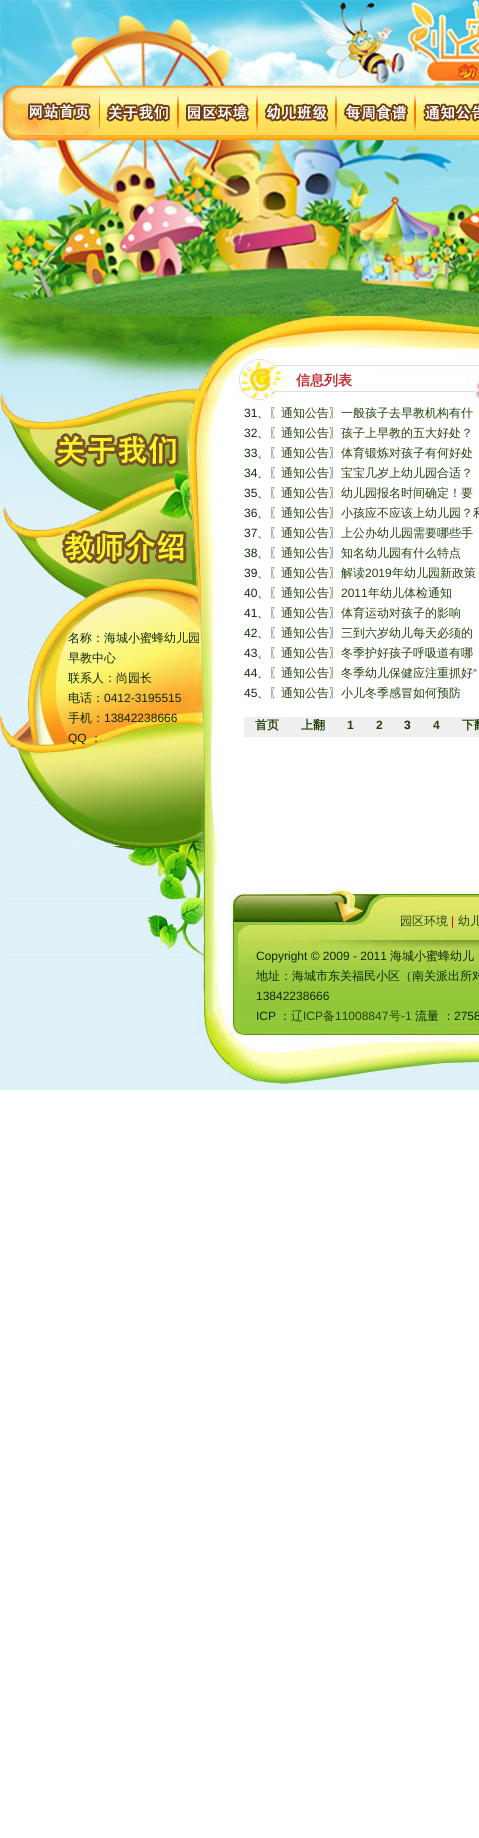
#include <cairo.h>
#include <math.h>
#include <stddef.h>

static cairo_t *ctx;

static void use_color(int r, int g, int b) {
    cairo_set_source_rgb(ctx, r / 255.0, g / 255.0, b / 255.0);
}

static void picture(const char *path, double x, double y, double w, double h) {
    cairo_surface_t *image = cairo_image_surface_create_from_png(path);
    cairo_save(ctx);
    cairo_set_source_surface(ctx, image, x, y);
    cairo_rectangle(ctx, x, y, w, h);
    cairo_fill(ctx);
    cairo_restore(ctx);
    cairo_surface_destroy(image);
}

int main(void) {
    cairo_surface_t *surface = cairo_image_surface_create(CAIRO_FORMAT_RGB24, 479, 1838);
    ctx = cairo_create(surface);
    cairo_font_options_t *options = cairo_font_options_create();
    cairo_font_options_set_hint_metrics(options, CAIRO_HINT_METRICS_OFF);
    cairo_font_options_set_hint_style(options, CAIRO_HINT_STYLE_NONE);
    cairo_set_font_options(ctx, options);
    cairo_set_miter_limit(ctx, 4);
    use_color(255, 255, 255);
    cairo_paint(ctx);
    picture("img1.png", 0, 1086, 479, 4);
    picture("img2.png", 0, 0, 479, 316);
    picture("img3.png", 20, 86, 79, 54);
    picture("img4.png", 99, 86, 79, 54);
    picture("img5.png", 178, 86, 79, 54);
    picture("img6.png", 257, 86, 79, 54);
    picture("img7.png", 336, 86, 79, 54);
    picture("img8.png", 415, 86, 64, 54);
    picture("img9.png", 0, 316, 479, 770);
    cairo_select_font_face(ctx, "WenQuanYi Zen Hei Medium", CAIRO_FONT_SLANT_NORMAL, CAIRO_FONT_WEIGHT_NORMAL);
    cairo_set_font_size(ctx, 12);
    use_color(13, 41, 8);
    cairo_move_to(ctx, 68, 642);
    cairo_show_text(ctx, "名称：海城小蜜蜂幼儿园");
    cairo_move_to(ctx, 68, 662);
    cairo_show_text(ctx, "早教中心");
    cairo_move_to(ctx, 68, 682);
    cairo_show_text(ctx, "联系人：尚园长");
    cairo_move_to(ctx, 68, 702);
    cairo_show_text(ctx, "电话：");
    cairo_select_font_face(ctx, "Liberation Sans", CAIRO_FONT_SLANT_NORMAL, CAIRO_FONT_WEIGHT_NORMAL);
    cairo_move_to(ctx, 104, 702);
    cairo_show_text(ctx, "0412-3195515");
    cairo_select_font_face(ctx, "WenQuanYi Zen Hei Medium", CAIRO_FONT_SLANT_NORMAL, CAIRO_FONT_WEIGHT_NORMAL);
    cairo_move_to(ctx, 68, 722);
    cairo_show_text(ctx, "手机：");
    cairo_select_font_face(ctx, "Liberation Sans", CAIRO_FONT_SLANT_NORMAL, CAIRO_FONT_WEIGHT_NORMAL);
    cairo_move_to(ctx, 104, 722);
    cairo_show_text(ctx, "13842238666");
    cairo_move_to(ctx, 68, 742);
    cairo_show_text(ctx, "QQ");
    cairo_select_font_face(ctx, "WenQuanYi Zen Hei Medium", CAIRO_FONT_SLANT_NORMAL, CAIRO_FONT_WEIGHT_NORMAL);
    cairo_move_to(ctx, 90, 742);
    cairo_show_text(ctx, "：");
    cairo_select_font_face(ctx, "WenQuanYi Zen Hei", CAIRO_FONT_SLANT_NORMAL, CAIRO_FONT_WEIGHT_BOLD);
    cairo_set_font_size(ctx, 14);
    use_color(193, 40, 49);
    cairo_move_to(ctx, 296, 385);
    cairo_show_text(ctx, "信息列表");
    cairo_select_font_face(ctx, "Liberation Sans", CAIRO_FONT_SLANT_NORMAL, CAIRO_FONT_WEIGHT_NORMAL);
    cairo_set_font_size(ctx, 12);
    use_color(13, 41, 8);
    cairo_move_to(ctx, 244, 417);
    cairo_show_text(ctx, "31");
    cairo_select_font_face(ctx, "WenQuanYi Zen Hei Medium", CAIRO_FONT_SLANT_NORMAL, CAIRO_FONT_WEIGHT_NORMAL);
    cairo_move_to(ctx, 257, 417);
    cairo_show_text(ctx, "、");
    use_color(37, 67, 12);
    cairo_move_to(ctx, 269, 417);
    cairo_show_text(ctx, "〖通知公告〗一般孩子去早教机构有什");
    cairo_select_font_face(ctx, "Liberation Sans", CAIRO_FONT_SLANT_NORMAL, CAIRO_FONT_WEIGHT_NORMAL);
    use_color(13, 41, 8);
    cairo_move_to(ctx, 244, 437);
    cairo_show_text(ctx, "32");
    cairo_select_font_face(ctx, "WenQuanYi Zen Hei Medium", CAIRO_FONT_SLANT_NORMAL, CAIRO_FONT_WEIGHT_NORMAL);
    cairo_move_to(ctx, 257, 437);
    cairo_show_text(ctx, "、");
    use_color(37, 67, 12);
    cairo_move_to(ctx, 269, 437);
    cairo_show_text(ctx, "〖通知公告〗孩子上早教的五大好处？");
    cairo_select_font_face(ctx, "Liberation Sans", CAIRO_FONT_SLANT_NORMAL, CAIRO_FONT_WEIGHT_NORMAL);
    use_color(13, 41, 8);
    cairo_move_to(ctx, 244, 457);
    cairo_show_text(ctx, "33");
    cairo_select_font_face(ctx, "WenQuanYi Zen Hei Medium", CAIRO_FONT_SLANT_NORMAL, CAIRO_FONT_WEIGHT_NORMAL);
    cairo_move_to(ctx, 257, 457);
    cairo_show_text(ctx, "、");
    use_color(37, 67, 12);
    cairo_move_to(ctx, 269, 457);
    cairo_show_text(ctx, "〖通知公告〗体育锻炼对孩子有何好处");
    cairo_select_font_face(ctx, "Liberation Sans", CAIRO_FONT_SLANT_NORMAL, CAIRO_FONT_WEIGHT_NORMAL);
    use_color(13, 41, 8);
    cairo_move_to(ctx, 244, 477);
    cairo_show_text(ctx, "34");
    cairo_select_font_face(ctx, "WenQuanYi Zen Hei Medium", CAIRO_FONT_SLANT_NORMAL, CAIRO_FONT_WEIGHT_NORMAL);
    cairo_move_to(ctx, 257, 477);
    cairo_show_text(ctx, "、");
    use_color(37, 67, 12);
    cairo_move_to(ctx, 269, 477);
    cairo_show_text(ctx, "〖通知公告〗宝宝几岁上幼儿园合适？");
    cairo_select_font_face(ctx, "Liberation Sans", CAIRO_FONT_SLANT_NORMAL, CAIRO_FONT_WEIGHT_NORMAL);
    use_color(13, 41, 8);
    cairo_move_to(ctx, 244, 497);
    cairo_show_text(ctx, "35");
    cairo_select_font_face(ctx, "WenQuanYi Zen Hei Medium", CAIRO_FONT_SLANT_NORMAL, CAIRO_FONT_WEIGHT_NORMAL);
    cairo_move_to(ctx, 257, 497);
    cairo_show_text(ctx, "、");
    use_color(37, 67, 12);
    cairo_move_to(ctx, 269, 497);
    cairo_show_text(ctx, "〖通知公告〗幼儿园报名时间确定！要");
    cairo_select_font_face(ctx, "Liberation Sans", CAIRO_FONT_SLANT_NORMAL, CAIRO_FONT_WEIGHT_NORMAL);
    use_color(13, 41, 8);
    cairo_move_to(ctx, 244, 517);
    cairo_show_text(ctx, "36");
    cairo_select_font_face(ctx, "WenQuanYi Zen Hei Medium", CAIRO_FONT_SLANT_NORMAL, CAIRO_FONT_WEIGHT_NORMAL);
    cairo_move_to(ctx, 257, 517);
    cairo_show_text(ctx, "、");
    use_color(37, 67, 12);
    cairo_move_to(ctx, 269, 517);
    cairo_show_text(ctx, "〖通知公告〗小孩应不应该上幼儿园？利");
    cairo_select_font_face(ctx, "Liberation Sans", CAIRO_FONT_SLANT_NORMAL, CAIRO_FONT_WEIGHT_NORMAL);
    use_color(13, 41, 8);
    cairo_move_to(ctx, 244, 537);
    cairo_show_text(ctx, "37");
    cairo_select_font_face(ctx, "WenQuanYi Zen Hei Medium", CAIRO_FONT_SLANT_NORMAL, CAIRO_FONT_WEIGHT_NORMAL);
    cairo_move_to(ctx, 257, 537);
    cairo_show_text(ctx, "、");
    use_color(37, 67, 12);
    cairo_move_to(ctx, 269, 537);
    cairo_show_text(ctx, "〖通知公告〗上公办幼儿园需要哪些手");
    cairo_select_font_face(ctx, "Liberation Sans", CAIRO_FONT_SLANT_NORMAL, CAIRO_FONT_WEIGHT_NORMAL);
    use_color(13, 41, 8);
    cairo_move_to(ctx, 244, 557);
    cairo_show_text(ctx, "38");
    cairo_select_font_face(ctx, "WenQuanYi Zen Hei Medium", CAIRO_FONT_SLANT_NORMAL, CAIRO_FONT_WEIGHT_NORMAL);
    cairo_move_to(ctx, 257, 557);
    cairo_show_text(ctx, "、");
    use_color(37, 67, 12);
    cairo_move_to(ctx, 269, 557);
    cairo_show_text(ctx, "〖通知公告〗知名幼儿园有什么特点");
    cairo_select_font_face(ctx, "Liberation Sans", CAIRO_FONT_SLANT_NORMAL, CAIRO_FONT_WEIGHT_NORMAL);
    use_color(13, 41, 8);
    cairo_move_to(ctx, 244, 577);
    cairo_show_text(ctx, "39");
    cairo_select_font_face(ctx, "WenQuanYi Zen Hei Medium", CAIRO_FONT_SLANT_NORMAL, CAIRO_FONT_WEIGHT_NORMAL);
    cairo_move_to(ctx, 257, 577);
    cairo_show_text(ctx, "、");
    use_color(37, 67, 12);
    cairo_move_to(ctx, 269, 577);
    cairo_show_text(ctx, "〖通知公告〗解读");
    cairo_select_font_face(ctx, "Liberation Sans", CAIRO_FONT_SLANT_NORMAL, CAIRO_FONT_WEIGHT_NORMAL);
    cairo_move_to(ctx, 365, 577);
    cairo_show_text(ctx, "2019");
    cairo_select_font_face(ctx, "WenQuanYi Zen Hei Medium", CAIRO_FONT_SLANT_NORMAL, CAIRO_FONT_WEIGHT_NORMAL);
    cairo_move_to(ctx, 392, 577);
    cairo_show_text(ctx, "年幼儿园新政策");
    cairo_select_font_face(ctx, "Liberation Sans", CAIRO_FONT_SLANT_NORMAL, CAIRO_FONT_WEIGHT_NORMAL);
    use_color(13, 41, 8);
    cairo_move_to(ctx, 244, 597);
    cairo_show_text(ctx, "40");
    cairo_select_font_face(ctx, "WenQuanYi Zen Hei Medium", CAIRO_FONT_SLANT_NORMAL, CAIRO_FONT_WEIGHT_NORMAL);
    cairo_move_to(ctx, 257, 597);
    cairo_show_text(ctx, "、");
    use_color(37, 67, 12);
    cairo_move_to(ctx, 269, 597);
    cairo_show_text(ctx, "〖通知公告〗");
    cairo_select_font_face(ctx, "Liberation Sans", CAIRO_FONT_SLANT_NORMAL, CAIRO_FONT_WEIGHT_NORMAL);
    cairo_move_to(ctx, 341, 597);
    cairo_show_text(ctx, "2011");
    cairo_select_font_face(ctx, "WenQuanYi Zen Hei Medium", CAIRO_FONT_SLANT_NORMAL, CAIRO_FONT_WEIGHT_NORMAL);
    cairo_move_to(ctx, 368, 597);
    cairo_show_text(ctx, "年幼儿体检通知");
    cairo_select_font_face(ctx, "Liberation Sans", CAIRO_FONT_SLANT_NORMAL, CAIRO_FONT_WEIGHT_NORMAL);
    use_color(13, 41, 8);
    cairo_move_to(ctx, 244, 617);
    cairo_show_text(ctx, "41");
    cairo_select_font_face(ctx, "WenQuanYi Zen Hei Medium", CAIRO_FONT_SLANT_NORMAL, CAIRO_FONT_WEIGHT_NORMAL);
    use_color(37, 67, 12);
    cairo_move_to(ctx, 269, 617);
    cairo_show_text(ctx, "〖通知公告〗体育运动对孩子的影响");
    use_color(13, 41, 8);
    cairo_move_to(ctx, 257, 617);
    cairo_show_text(ctx, "、");
    cairo_select_font_face(ctx, "Liberation Sans", CAIRO_FONT_SLANT_NORMAL, CAIRO_FONT_WEIGHT_NORMAL);
    cairo_move_to(ctx, 244, 637);
    cairo_show_text(ctx, "42");
    cairo_select_font_face(ctx, "WenQuanYi Zen Hei Medium", CAIRO_FONT_SLANT_NORMAL, CAIRO_FONT_WEIGHT_NORMAL);
    use_color(37, 67, 12);
    cairo_move_to(ctx, 269, 637);
    cairo_show_text(ctx, "〖通知公告〗三到六岁幼儿每天必须的");
    use_color(13, 41, 8);
    cairo_move_to(ctx, 257, 637);
    cairo_show_text(ctx, "、");
    cairo_select_font_face(ctx, "Liberation Sans", CAIRO_FONT_SLANT_NORMAL, CAIRO_FONT_WEIGHT_NORMAL);
    cairo_move_to(ctx, 244, 657);
    cairo_show_text(ctx, "43");
    cairo_select_font_face(ctx, "WenQuanYi Zen Hei Medium", CAIRO_FONT_SLANT_NORMAL, CAIRO_FONT_WEIGHT_NORMAL);
    cairo_move_to(ctx, 257, 657);
    cairo_show_text(ctx, "、");
    use_color(37, 67, 12);
    cairo_move_to(ctx, 269, 657);
    cairo_show_text(ctx, "〖通知公告〗冬季护好孩子呼吸道有哪");
    cairo_select_font_face(ctx, "Liberation Sans", CAIRO_FONT_SLANT_NORMAL, CAIRO_FONT_WEIGHT_NORMAL);
    use_color(13, 41, 8);
    cairo_move_to(ctx, 244, 677);
    cairo_show_text(ctx, "44");
    cairo_select_font_face(ctx, "WenQuanYi Zen Hei Medium", CAIRO_FONT_SLANT_NORMAL, CAIRO_FONT_WEIGHT_NORMAL);
    use_color(37, 67, 12);
    cairo_move_to(ctx, 269, 677);
    cairo_show_text(ctx, "〖通知公告〗冬季幼儿保健应注重抓好");
    cairo_select_font_face(ctx, "Liberation Sans", CAIRO_FONT_SLANT_NORMAL, CAIRO_FONT_WEIGHT_NORMAL);
    cairo_move_to(ctx, 473, 677);
    cairo_show_text(ctx, "“");
    cairo_select_font_face(ctx, "WenQuanYi Zen Hei Medium", CAIRO_FONT_SLANT_NORMAL, CAIRO_FONT_WEIGHT_NORMAL);
    use_color(13, 41, 8);
    cairo_move_to(ctx, 257, 677);
    cairo_show_text(ctx, "、");
    cairo_select_font_face(ctx, "Liberation Sans", CAIRO_FONT_SLANT_NORMAL, CAIRO_FONT_WEIGHT_NORMAL);
    cairo_move_to(ctx, 244, 697);
    cairo_show_text(ctx, "45");
    cairo_select_font_face(ctx, "WenQuanYi Zen Hei Medium", CAIRO_FONT_SLANT_NORMAL, CAIRO_FONT_WEIGHT_NORMAL);
    cairo_move_to(ctx, 257, 697);
    cairo_show_text(ctx, "、");
    use_color(37, 67, 12);
    cairo_move_to(ctx, 269, 697);
    cairo_show_text(ctx, "〖通知公告〗小儿冬季感冒如何预防");
    use_color(239, 239, 239);
    cairo_rectangle(ctx, 244, 717, 235, 20);
    cairo_fill(ctx);
    cairo_select_font_face(ctx, "WenQuanYi Zen Hei", CAIRO_FONT_SLANT_NORMAL, CAIRO_FONT_WEIGHT_BOLD);
    use_color(37, 67, 12);
    cairo_move_to(ctx, 255, 729);
    cairo_show_text(ctx, "首页");
    cairo_move_to(ctx, 301, 729);
    cairo_show_text(ctx, "上翻");
    cairo_select_font_face(ctx, "Liberation Sans", CAIRO_FONT_SLANT_NORMAL, CAIRO_FONT_WEIGHT_BOLD);
    cairo_move_to(ctx, 347, 729);
    cairo_show_text(ctx, "1");
    cairo_move_to(ctx, 376, 729);
    cairo_show_text(ctx, "2");
    use_color(13, 41, 8);
    cairo_move_to(ctx, 404, 729);
    cairo_show_text(ctx, "3");
    use_color(37, 67, 12);
    cairo_move_to(ctx, 433, 729);
    cairo_show_text(ctx, "4");
    cairo_select_font_face(ctx, "WenQuanYi Zen Hei", CAIRO_FONT_SLANT_NORMAL, CAIRO_FONT_WEIGHT_BOLD);
    cairo_move_to(ctx, 462, 729);
    cairo_show_text(ctx, "下翻");
    cairo_select_font_face(ctx, "WenQuanYi Zen Hei Medium", CAIRO_FONT_SLANT_NORMAL, CAIRO_FONT_WEIGHT_NORMAL);
    cairo_move_to(ctx, 400, 925);
    cairo_show_text(ctx, "园区环境");
    cairo_select_font_face(ctx, "Liberation Sans", CAIRO_FONT_SLANT_NORMAL, CAIRO_FONT_WEIGHT_NORMAL);
    use_color(204, 0, 0);
    cairo_move_to(ctx, 451, 925);
    cairo_show_text(ctx, "|");
    cairo_select_font_face(ctx, "WenQuanYi Zen Hei Medium", CAIRO_FONT_SLANT_NORMAL, CAIRO_FONT_WEIGHT_NORMAL);
    use_color(37, 67, 12);
    cairo_move_to(ctx, 458, 925);
    cairo_show_text(ctx, "幼儿");
    cairo_select_font_face(ctx, "Liberation Sans", CAIRO_FONT_SLANT_NORMAL, CAIRO_FONT_WEIGHT_NORMAL);
    use_color(13, 41, 8);
    cairo_move_to(ctx, 256, 960);
    cairo_show_text(ctx, "Copyright © 2009 - 2011");
    cairo_select_font_face(ctx, "WenQuanYi Zen Hei Medium", CAIRO_FONT_SLANT_NORMAL, CAIRO_FONT_WEIGHT_NORMAL);
    cairo_move_to(ctx, 390, 960);
    cairo_show_text(ctx, "海城小蜜蜂幼儿");
    cairo_move_to(ctx, 256, 980);
    cairo_show_text(ctx, "地址：海城市东关福民小区（南关派出所对");
    cairo_select_font_face(ctx, "Liberation Sans", CAIRO_FONT_SLANT_NORMAL, CAIRO_FONT_WEIGHT_NORMAL);
    cairo_move_to(ctx, 256, 1000);
    cairo_show_text(ctx, "13842238666");
    cairo_move_to(ctx, 256, 1020);
    cairo_show_text(ctx, "ICP");
    cairo_select_font_face(ctx, "WenQuanYi Zen Hei Medium", CAIRO_FONT_SLANT_NORMAL, CAIRO_FONT_WEIGHT_NORMAL);
    cairo_move_to(ctx, 279, 1020);
    cairo_show_text(ctx, "：");
    use_color(37, 67, 12);
    cairo_move_to(ctx, 291, 1020);
    cairo_show_text(ctx, "辽");
    cairo_select_font_face(ctx, "Liberation Sans", CAIRO_FONT_SLANT_NORMAL, CAIRO_FONT_WEIGHT_NORMAL);
    cairo_move_to(ctx, 303, 1020);
    cairo_show_text(ctx, "ICP");
    cairo_select_font_face(ctx, "WenQuanYi Zen Hei Medium", CAIRO_FONT_SLANT_NORMAL, CAIRO_FONT_WEIGHT_NORMAL);
    cairo_move_to(ctx, 323, 1020);
    cairo_show_text(ctx, "备");
    cairo_select_font_face(ctx, "Liberation Sans", CAIRO_FONT_SLANT_NORMAL, CAIRO_FONT_WEIGHT_NORMAL);
    cairo_move_to(ctx, 335, 1020);
    cairo_show_text(ctx, "11008847");
    cairo_select_font_face(ctx, "WenQuanYi Zen Hei Medium", CAIRO_FONT_SLANT_NORMAL, CAIRO_FONT_WEIGHT_NORMAL);
    cairo_move_to(ctx, 389, 1020);
    cairo_show_text(ctx, "号");
    cairo_select_font_face(ctx, "Liberation Sans", CAIRO_FONT_SLANT_NORMAL, CAIRO_FONT_WEIGHT_NORMAL);
    cairo_move_to(ctx, 401, 1020);
    cairo_show_text(ctx, "-1");
    cairo_select_font_face(ctx, "WenQuanYi Zen Hei Medium", CAIRO_FONT_SLANT_NORMAL, CAIRO_FONT_WEIGHT_NORMAL);
    use_color(13, 41, 8);
    cairo_move_to(ctx, 415, 1020);
    cairo_show_text(ctx, "流量 ：");
    cairo_select_font_face(ctx, "Liberation Sans", CAIRO_FONT_SLANT_NORMAL, CAIRO_FONT_WEIGHT_NORMAL);
    cairo_move_to(ctx, 454, 1020);
    cairo_show_text(ctx, "2758");
    cairo_surface_write_to_png(surface, "result.png");
    cairo_font_options_destroy(options);
    cairo_destroy(ctx);
    cairo_surface_destroy(surface);
    return 0;
}
